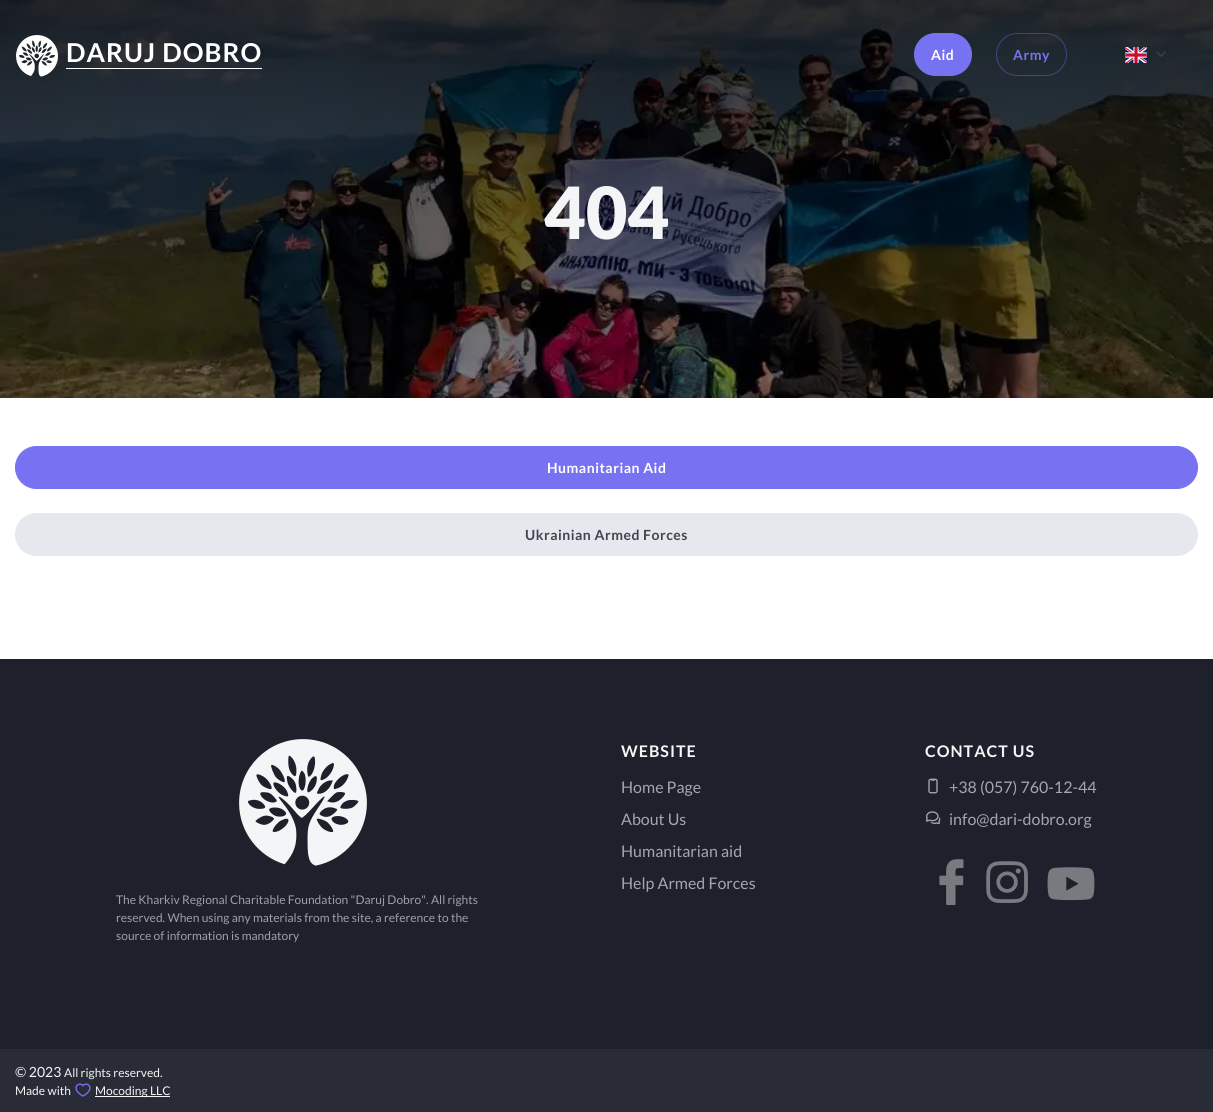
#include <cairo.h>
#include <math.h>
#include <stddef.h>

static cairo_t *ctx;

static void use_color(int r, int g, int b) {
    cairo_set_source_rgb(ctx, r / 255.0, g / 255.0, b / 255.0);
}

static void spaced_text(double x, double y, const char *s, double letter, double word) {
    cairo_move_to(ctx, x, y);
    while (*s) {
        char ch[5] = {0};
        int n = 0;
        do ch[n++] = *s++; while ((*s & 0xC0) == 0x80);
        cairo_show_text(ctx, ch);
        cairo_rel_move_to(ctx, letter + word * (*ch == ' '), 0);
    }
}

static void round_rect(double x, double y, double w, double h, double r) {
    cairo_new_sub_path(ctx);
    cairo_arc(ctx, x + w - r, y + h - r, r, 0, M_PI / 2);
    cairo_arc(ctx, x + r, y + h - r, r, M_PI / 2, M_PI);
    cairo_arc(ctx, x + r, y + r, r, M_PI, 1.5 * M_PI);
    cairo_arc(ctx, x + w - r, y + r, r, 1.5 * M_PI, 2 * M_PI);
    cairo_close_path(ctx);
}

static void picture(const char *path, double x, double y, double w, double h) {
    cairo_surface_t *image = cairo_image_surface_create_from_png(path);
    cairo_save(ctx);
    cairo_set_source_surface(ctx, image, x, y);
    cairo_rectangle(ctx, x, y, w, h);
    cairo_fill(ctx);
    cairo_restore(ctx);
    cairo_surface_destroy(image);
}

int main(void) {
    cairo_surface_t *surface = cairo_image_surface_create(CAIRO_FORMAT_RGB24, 1213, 1112);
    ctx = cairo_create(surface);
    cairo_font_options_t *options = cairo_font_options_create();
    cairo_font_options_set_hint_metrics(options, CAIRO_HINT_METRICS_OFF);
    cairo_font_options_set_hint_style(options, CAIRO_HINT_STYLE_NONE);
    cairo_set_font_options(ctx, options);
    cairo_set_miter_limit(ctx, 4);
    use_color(255, 255, 255);
    cairo_paint(ctx);
    picture("img4.png", 0, 0, 1213, 398);
    picture("img1.png", 16, 35, 42, 42);
    cairo_select_font_face(ctx, "Lato", CAIRO_FONT_SLANT_NORMAL, CAIRO_FONT_WEIGHT_BOLD);
    cairo_set_font_size(ctx, 26);
    use_color(255, 255, 255);
    spaced_text(66, 62, "DARUJ DOBRO", 1, 0);
    cairo_rectangle(ctx, 66, 68, 196, 1);
    cairo_fill(ctx);
    use_color(119, 114, 241);
    round_rect(914.5, 33.5, 57, 42, 21);
    cairo_fill_preserve(ctx);
    cairo_set_line_width(ctx, 1);
    cairo_stroke(ctx);
    cairo_set_font_size(ctx, 14);
    use_color(255, 255, 255);
    spaced_text(931, 60, "Aid", 0.5, 0);
    round_rect(996.5, 33.5, 70, 42, 21);
    cairo_set_source_rgba(ctx, 0.467, 0.447, 0.945, 0.4);
    cairo_stroke(ctx);
    use_color(119, 114, 241);
    spaced_text(1013, 60, "Army", 0.5, 0);
    picture("img2.png", 1125, 47, 22, 16);
    picture("img3.png", 1156, 51, 10, 6);
    cairo_select_font_face(ctx, "Lato Black", CAIRO_FONT_SLANT_NORMAL, CAIRO_FONT_WEIGHT_NORMAL);
    cairo_set_font_size(ctx, 72);
    use_color(244, 245, 246);
    cairo_move_to(ctx, 544, 239);
    cairo_show_text(ctx, "404");
    use_color(119, 114, 241);
    round_rect(15.5, 446.5, 1182, 42, 21);
    cairo_fill_preserve(ctx);
    cairo_stroke(ctx);
    cairo_select_font_face(ctx, "Lato", CAIRO_FONT_SLANT_NORMAL, CAIRO_FONT_WEIGHT_BOLD);
    cairo_set_font_size(ctx, 14);
    use_color(255, 255, 255);
    spaced_text(547, 473, "Humanitarian Aid", 0.5, 0);
    use_color(229, 232, 237);
    round_rect(15.5, 513.5, 1182, 42, 21);
    cairo_fill_preserve(ctx);
    cairo_stroke(ctx);
    use_color(66, 69, 81);
    spaced_text(525, 540, "Ukrainian Armed Forces", 0.5, 0);
    use_color(30, 33, 44);
    cairo_rectangle(ctx, 0, 659, 1213, 390);
    cairo_fill(ctx);
    cairo_set_font_size(ctx, 16);
    use_color(244, 245, 246);
    spaced_text(621, 757, "WEBSITE", 1, 0);
    cairo_select_font_face(ctx, "Lato", CAIRO_FONT_SLANT_NORMAL, CAIRO_FONT_WEIGHT_NORMAL);
    use_color(165, 166, 171);
    cairo_move_to(ctx, 621, 793);
    cairo_show_text(ctx, "Home Page");
    cairo_move_to(ctx, 621, 825);
    cairo_show_text(ctx, "About Us");
    cairo_move_to(ctx, 621, 857);
    cairo_show_text(ctx, "Humanitarian aid");
    cairo_move_to(ctx, 621, 889);
    cairo_show_text(ctx, "Help Armed Forces");
    cairo_select_font_face(ctx, "Lato", CAIRO_FONT_SLANT_NORMAL, CAIRO_FONT_WEIGHT_BOLD);
    use_color(244, 245, 246);
    spaced_text(925, 757, "CONTACT US", 1, 0);
    picture("img5.png", 928, 778, 10, 16);
    cairo_select_font_face(ctx, "Lato", CAIRO_FONT_SLANT_NORMAL, CAIRO_FONT_WEIGHT_NORMAL);
    use_color(165, 166, 171);
    cairo_move_to(ctx, 949, 793);
    cairo_show_text(ctx, "+38 (057) 760-12-44");
    picture("img6.png", 925, 811, 16, 14);
    cairo_move_to(ctx, 949, 825);
    cairo_show_text(ctx, "info@dari-dobro.org");
    picture("img7.png", 939, 859, 25, 46);
    picture("img8.png", 986, 861, 42, 42);
    picture("img9.png", 1047, 867, 48, 34);
    picture("img10.png", 239, 739, 128, 127);
    cairo_set_font_size(ctx, 12);
    use_color(158, 160, 165);
    cairo_move_to(ctx, 116, 904);
    cairo_show_text(ctx, "The Kharkiv Regional Charitable Foundation \"Daruj Dobro\". All rights");
    cairo_move_to(ctx, 116, 922);
    cairo_show_text(ctx, "reserved. When using any materials from the site, a reference to the");
    cairo_move_to(ctx, 116, 940);
    cairo_show_text(ctx, "source of information is mandatory");
    use_color(41, 44, 55);
    cairo_rectangle(ctx, 0, 1049, 1213, 63);
    cairo_fill(ctx);
    cairo_set_font_size(ctx, 14);
    use_color(244, 245, 246);
    cairo_move_to(ctx, 15, 1077);
    cairo_show_text(ctx, "© 2023");
    cairo_set_font_size(ctx, 12);
    cairo_move_to(ctx, 64, 1077);
    cairo_show_text(ctx, "All rights reserved.");
    cairo_move_to(ctx, 15, 1095);
    cairo_show_text(ctx, "Made with");
    picture("img11.png", 75, 1083, 16, 14);
    cairo_rectangle(ctx, 95, 1096, 75, 1);
    cairo_fill(ctx);
    cairo_move_to(ctx, 95, 1095);
    cairo_show_text(ctx, "Mocoding LLC");
    cairo_surface_write_to_png(surface, "result.png");
    cairo_font_options_destroy(options);
    cairo_destroy(ctx);
    cairo_surface_destroy(surface);
    return 0;
}
